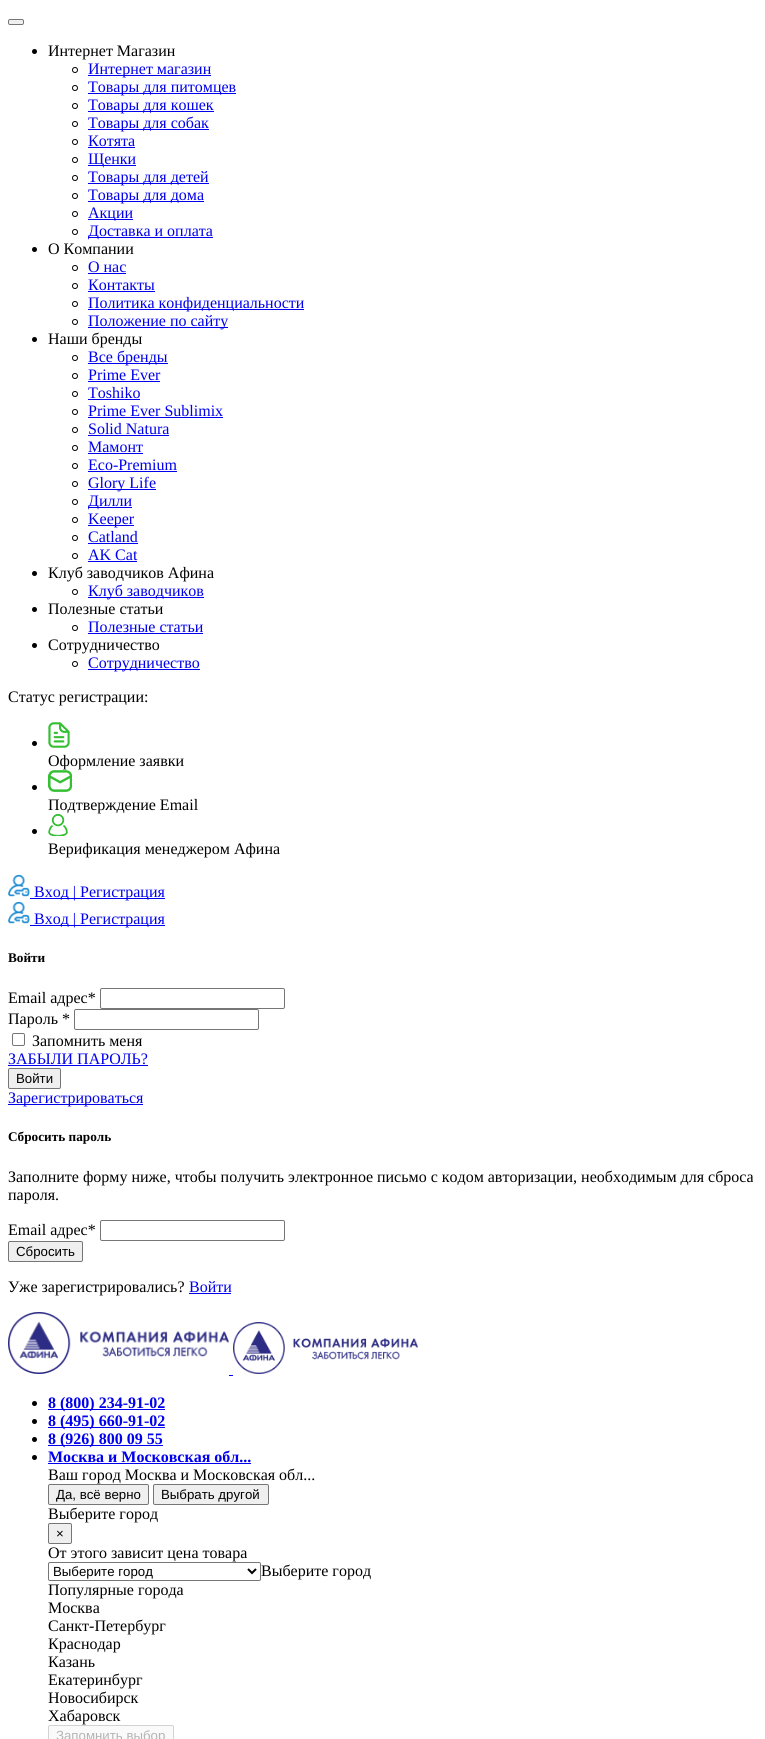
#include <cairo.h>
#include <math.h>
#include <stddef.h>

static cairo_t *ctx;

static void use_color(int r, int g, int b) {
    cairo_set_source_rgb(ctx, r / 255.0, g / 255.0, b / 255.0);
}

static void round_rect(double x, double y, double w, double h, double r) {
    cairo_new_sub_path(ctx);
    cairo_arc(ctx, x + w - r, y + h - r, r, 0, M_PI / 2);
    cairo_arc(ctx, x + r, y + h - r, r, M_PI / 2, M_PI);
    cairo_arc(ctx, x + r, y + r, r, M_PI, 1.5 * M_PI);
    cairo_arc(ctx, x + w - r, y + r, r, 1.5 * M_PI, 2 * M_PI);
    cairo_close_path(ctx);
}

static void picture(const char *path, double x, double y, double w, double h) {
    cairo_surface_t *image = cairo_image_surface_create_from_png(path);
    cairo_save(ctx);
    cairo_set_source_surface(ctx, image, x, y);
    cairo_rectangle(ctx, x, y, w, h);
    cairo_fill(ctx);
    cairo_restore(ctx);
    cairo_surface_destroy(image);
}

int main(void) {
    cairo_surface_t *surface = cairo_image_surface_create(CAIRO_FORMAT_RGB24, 765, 1739);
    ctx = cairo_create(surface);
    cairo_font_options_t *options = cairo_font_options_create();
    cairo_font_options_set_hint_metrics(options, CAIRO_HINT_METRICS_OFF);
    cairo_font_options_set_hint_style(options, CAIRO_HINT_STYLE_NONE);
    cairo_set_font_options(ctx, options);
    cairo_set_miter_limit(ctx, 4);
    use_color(255, 255, 255);
    cairo_paint(ctx);
    use_color(239, 239, 239);
    round_rect(8.5, 19.5, 15, 5, 1.5);
    cairo_fill_preserve(ctx);
    use_color(118, 118, 118);
    cairo_set_line_width(ctx, 1);
    cairo_stroke(ctx);
    use_color(0, 0, 0);
    cairo_arc(ctx, 34.5, 51.5, 2.5, 0, 2 * M_PI);
    cairo_fill(ctx);
    cairo_select_font_face(ctx, "Liberation Serif", CAIRO_FONT_SLANT_NORMAL, CAIRO_FONT_WEIGHT_NORMAL);
    cairo_set_font_size(ctx, 16);
    cairo_move_to(ctx, 48, 56);
    cairo_show_text(ctx, "Интернет Магазин");
    cairo_new_path(ctx);
    cairo_arc(ctx, 75, 70, 2.5, 0, 2 * M_PI);
    cairo_stroke(ctx);
    use_color(0, 0, 238);
    cairo_rectangle(ctx, 88, 75, 123, 1);
    cairo_fill(ctx);
    cairo_move_to(ctx, 88, 74);
    cairo_show_text(ctx, "Интернет магазин");
    cairo_new_path(ctx);
    cairo_arc(ctx, 75, 88, 2.5, 0, 2 * M_PI);
    use_color(0, 0, 0);
    cairo_stroke(ctx);
    use_color(0, 0, 238);
    cairo_rectangle(ctx, 88, 93, 148, 1);
    cairo_fill(ctx);
    cairo_move_to(ctx, 88, 92);
    cairo_show_text(ctx, "Товары для питомцев");
    cairo_new_path(ctx);
    cairo_arc(ctx, 75, 106, 2.5, 0, 2 * M_PI);
    use_color(0, 0, 0);
    cairo_stroke(ctx);
    use_color(0, 0, 238);
    cairo_rectangle(ctx, 88, 111, 126, 1);
    cairo_fill(ctx);
    cairo_move_to(ctx, 88, 110);
    cairo_show_text(ctx, "Товары для кошек");
    cairo_new_path(ctx);
    cairo_arc(ctx, 75, 124, 2.5, 0, 2 * M_PI);
    use_color(0, 0, 0);
    cairo_stroke(ctx);
    use_color(0, 0, 238);
    cairo_rectangle(ctx, 88, 129, 121, 1);
    cairo_fill(ctx);
    cairo_move_to(ctx, 88, 128);
    cairo_show_text(ctx, "Товары для собак");
    cairo_new_path(ctx);
    cairo_arc(ctx, 75, 142, 2.5, 0, 2 * M_PI);
    use_color(0, 0, 0);
    cairo_stroke(ctx);
    use_color(0, 0, 238);
    cairo_move_to(ctx, 88, 146);
    cairo_show_text(ctx, "Котята");
    cairo_rectangle(ctx, 88, 147, 47, 1);
    cairo_fill(ctx);
    cairo_arc(ctx, 75, 160, 2.5, 0, 2 * M_PI);
    use_color(0, 0, 0);
    cairo_stroke(ctx);
    use_color(0, 0, 238);
    cairo_rectangle(ctx, 88, 165, 48, 1);
    cairo_fill(ctx);
    cairo_move_to(ctx, 88, 164);
    cairo_show_text(ctx, "Щенки");
    cairo_new_path(ctx);
    cairo_arc(ctx, 75, 178, 2.5, 0, 2 * M_PI);
    use_color(0, 0, 0);
    cairo_stroke(ctx);
    use_color(0, 0, 238);
    cairo_rectangle(ctx, 88, 183, 121, 1);
    cairo_fill(ctx);
    cairo_move_to(ctx, 88, 182);
    cairo_show_text(ctx, "Товары для детей");
    cairo_new_path(ctx);
    cairo_arc(ctx, 75, 196, 2.5, 0, 2 * M_PI);
    use_color(0, 0, 0);
    cairo_stroke(ctx);
    use_color(0, 0, 238);
    cairo_rectangle(ctx, 88, 201, 116, 1);
    cairo_fill(ctx);
    cairo_move_to(ctx, 88, 200);
    cairo_show_text(ctx, "Товары для дома");
    cairo_new_path(ctx);
    cairo_arc(ctx, 75, 214, 2.5, 0, 2 * M_PI);
    use_color(0, 0, 0);
    cairo_stroke(ctx);
    use_color(0, 0, 238);
    cairo_rectangle(ctx, 88, 219, 45, 1);
    cairo_fill(ctx);
    cairo_move_to(ctx, 88, 218);
    cairo_show_text(ctx, "Акции");
    cairo_new_path(ctx);
    cairo_arc(ctx, 75, 232, 2.5, 0, 2 * M_PI);
    use_color(0, 0, 0);
    cairo_stroke(ctx);
    use_color(0, 0, 238);
    cairo_rectangle(ctx, 88, 237, 125, 1);
    cairo_fill(ctx);
    cairo_move_to(ctx, 88, 236);
    cairo_show_text(ctx, "Доставка и оплата");
    use_color(0, 0, 0);
    cairo_new_path(ctx);
    cairo_arc(ctx, 34.5, 249.5, 2.5, 0, 2 * M_PI);
    cairo_fill(ctx);
    cairo_move_to(ctx, 48, 254);
    cairo_show_text(ctx, "О Компании");
    cairo_new_path(ctx);
    cairo_arc(ctx, 75, 268, 2.5, 0, 2 * M_PI);
    cairo_stroke(ctx);
    use_color(0, 0, 238);
    cairo_move_to(ctx, 88, 272);
    cairo_show_text(ctx, "О нас");
    cairo_rectangle(ctx, 88, 273, 38, 1);
    cairo_fill(ctx);
    cairo_arc(ctx, 75, 286, 2.5, 0, 2 * M_PI);
    use_color(0, 0, 0);
    cairo_stroke(ctx);
    use_color(0, 0, 238);
    cairo_move_to(ctx, 88, 290);
    cairo_show_text(ctx, "Контакты");
    cairo_rectangle(ctx, 88, 291, 67, 1);
    cairo_fill(ctx);
    cairo_arc(ctx, 75, 304, 2.5, 0, 2 * M_PI);
    use_color(0, 0, 0);
    cairo_stroke(ctx);
    use_color(0, 0, 238);
    cairo_rectangle(ctx, 88, 309, 216, 1);
    cairo_fill(ctx);
    cairo_move_to(ctx, 88, 308);
    cairo_show_text(ctx, "Политика конфиденциальности");
    cairo_new_path(ctx);
    cairo_arc(ctx, 75, 322, 2.5, 0, 2 * M_PI);
    use_color(0, 0, 0);
    cairo_stroke(ctx);
    use_color(0, 0, 238);
    cairo_rectangle(ctx, 88, 327, 140, 1);
    cairo_fill(ctx);
    cairo_move_to(ctx, 88, 326);
    cairo_show_text(ctx, "Положение по сайту");
    use_color(0, 0, 0);
    cairo_new_path(ctx);
    cairo_arc(ctx, 34.5, 339.5, 2.5, 0, 2 * M_PI);
    cairo_fill(ctx);
    cairo_move_to(ctx, 48, 344);
    cairo_show_text(ctx, "Наши бренды");
    cairo_new_path(ctx);
    cairo_arc(ctx, 75, 358, 2.5, 0, 2 * M_PI);
    cairo_stroke(ctx);
    use_color(0, 0, 238);
    cairo_rectangle(ctx, 88, 363, 80, 1);
    cairo_fill(ctx);
    cairo_move_to(ctx, 88, 362);
    cairo_show_text(ctx, "Все бренды");
    cairo_new_path(ctx);
    cairo_arc(ctx, 75, 376, 2.5, 0, 2 * M_PI);
    use_color(0, 0, 0);
    cairo_stroke(ctx);
    use_color(0, 0, 238);
    cairo_move_to(ctx, 88, 380);
    cairo_show_text(ctx, "Prime Ever");
    cairo_rectangle(ctx, 88, 381, 72, 1);
    cairo_fill(ctx);
    cairo_arc(ctx, 75, 394, 2.5, 0, 2 * M_PI);
    use_color(0, 0, 0);
    cairo_stroke(ctx);
    use_color(0, 0, 238);
    cairo_move_to(ctx, 88, 398);
    cairo_show_text(ctx, "Toshiko");
    cairo_rectangle(ctx, 88, 399, 52, 1);
    cairo_fill(ctx);
    cairo_arc(ctx, 75, 412, 2.5, 0, 2 * M_PI);
    use_color(0, 0, 0);
    cairo_stroke(ctx);
    use_color(0, 0, 238);
    cairo_move_to(ctx, 88, 416);
    cairo_show_text(ctx, "Prime Ever Sublimix");
    cairo_rectangle(ctx, 88, 417, 135, 1);
    cairo_fill(ctx);
    cairo_arc(ctx, 75, 430, 2.5, 0, 2 * M_PI);
    use_color(0, 0, 0);
    cairo_stroke(ctx);
    use_color(0, 0, 238);
    cairo_move_to(ctx, 88, 434);
    cairo_show_text(ctx, "Solid Natura");
    cairo_rectangle(ctx, 88, 435, 81, 1);
    cairo_fill(ctx);
    cairo_arc(ctx, 75, 448, 2.5, 0, 2 * M_PI);
    use_color(0, 0, 0);
    cairo_stroke(ctx);
    use_color(0, 0, 238);
    cairo_move_to(ctx, 88, 452);
    cairo_show_text(ctx, "Мамонт");
    cairo_rectangle(ctx, 88, 453, 55, 1);
    cairo_fill(ctx);
    cairo_arc(ctx, 75, 466, 2.5, 0, 2 * M_PI);
    use_color(0, 0, 0);
    cairo_stroke(ctx);
    use_color(0, 0, 238);
    cairo_move_to(ctx, 88, 470);
    cairo_show_text(ctx, "Eco-Premium");
    cairo_rectangle(ctx, 88, 471, 89, 1);
    cairo_fill(ctx);
    cairo_arc(ctx, 75, 484, 2.5, 0, 2 * M_PI);
    use_color(0, 0, 0);
    cairo_stroke(ctx);
    use_color(0, 0, 238);
    cairo_rectangle(ctx, 88, 489, 68, 1);
    cairo_fill(ctx);
    cairo_move_to(ctx, 88, 488);
    cairo_show_text(ctx, "Glory Life");
    cairo_new_path(ctx);
    cairo_arc(ctx, 75, 502, 2.5, 0, 2 * M_PI);
    use_color(0, 0, 0);
    cairo_stroke(ctx);
    use_color(0, 0, 238);
    cairo_rectangle(ctx, 88, 507, 44, 1);
    cairo_fill(ctx);
    cairo_move_to(ctx, 88, 506);
    cairo_show_text(ctx, "Дилли");
    cairo_new_path(ctx);
    cairo_arc(ctx, 75, 520, 2.5, 0, 2 * M_PI);
    use_color(0, 0, 0);
    cairo_stroke(ctx);
    use_color(0, 0, 238);
    cairo_rectangle(ctx, 88, 525, 46, 1);
    cairo_fill(ctx);
    cairo_move_to(ctx, 88, 524);
    cairo_show_text(ctx, "Keeper");
    cairo_new_path(ctx);
    cairo_arc(ctx, 75, 538, 2.5, 0, 2 * M_PI);
    use_color(0, 0, 0);
    cairo_stroke(ctx);
    use_color(0, 0, 238);
    cairo_move_to(ctx, 88, 542);
    cairo_show_text(ctx, "Catland");
    cairo_rectangle(ctx, 88, 543, 50, 1);
    cairo_fill(ctx);
    cairo_arc(ctx, 75, 556, 2.5, 0, 2 * M_PI);
    use_color(0, 0, 0);
    cairo_stroke(ctx);
    use_color(0, 0, 238);
    cairo_move_to(ctx, 88, 560);
    cairo_show_text(ctx, "AK Cat");
    cairo_rectangle(ctx, 88, 561, 49, 1);
    cairo_fill(ctx);
    use_color(0, 0, 0);
    cairo_arc(ctx, 34.5, 573.5, 2.5, 0, 2 * M_PI);
    cairo_fill(ctx);
    cairo_move_to(ctx, 48, 578);
    cairo_show_text(ctx, "Клуб заводчиков Афина");
    cairo_new_path(ctx);
    cairo_arc(ctx, 75, 592, 2.5, 0, 2 * M_PI);
    cairo_stroke(ctx);
    use_color(0, 0, 238);
    cairo_rectangle(ctx, 88, 597, 116, 1);
    cairo_fill(ctx);
    cairo_move_to(ctx, 88, 596);
    cairo_show_text(ctx, "Клуб заводчиков");
    use_color(0, 0, 0);
    cairo_new_path(ctx);
    cairo_arc(ctx, 34.5, 609.5, 2.5, 0, 2 * M_PI);
    cairo_fill(ctx);
    cairo_move_to(ctx, 48, 614);
    cairo_show_text(ctx, "Полезные статьи");
    cairo_new_path(ctx);
    cairo_arc(ctx, 75, 628, 2.5, 0, 2 * M_PI);
    cairo_stroke(ctx);
    use_color(0, 0, 238);
    cairo_move_to(ctx, 88, 632);
    cairo_show_text(ctx, "Полезные статьи");
    cairo_rectangle(ctx, 88, 633, 115, 1);
    cairo_fill(ctx);
    use_color(0, 0, 0);
    cairo_arc(ctx, 34.5, 645.5, 2.5, 0, 2 * M_PI);
    cairo_fill(ctx);
    cairo_move_to(ctx, 48, 650);
    cairo_show_text(ctx, "Сотрудничество");
    cairo_new_path(ctx);
    cairo_arc(ctx, 75, 664, 2.5, 0, 2 * M_PI);
    cairo_stroke(ctx);
    use_color(0, 0, 238);
    cairo_rectangle(ctx, 88, 669, 112, 1);
    cairo_fill(ctx);
    cairo_move_to(ctx, 88, 668);
    cairo_show_text(ctx, "Сотрудничество");
    use_color(0, 0, 0);
    cairo_move_to(ctx, 8, 702);
    cairo_show_text(ctx, "Статус регистрации:");
    cairo_new_path(ctx);
    cairo_arc(ctx, 34.5, 743.5, 2.5, 0, 2 * M_PI);
    cairo_fill(ctx);
    picture("img1.png", 48, 722, 22, 26);
    cairo_move_to(ctx, 48, 766);
    cairo_show_text(ctx, "Оформление заявки");
    cairo_new_path(ctx);
    cairo_arc(ctx, 34.5, 787.5, 2.5, 0, 2 * M_PI);
    cairo_fill(ctx);
    picture("img2.png", 48, 770, 24, 22);
    cairo_move_to(ctx, 48, 810);
    cairo_show_text(ctx, "Подтверждение Email");
    cairo_new_path(ctx);
    cairo_arc(ctx, 34.5, 831.5, 2.5, 0, 2 * M_PI);
    cairo_fill(ctx);
    picture("img3.png", 48, 814, 20, 22);
    cairo_move_to(ctx, 48, 854);
    cairo_show_text(ctx, "Верификация менеджером Афина");
    picture("img4.png", 8, 874, 22, 23);
    use_color(0, 0, 238);
    cairo_rectangle(ctx, 30, 898, 135, 1);
    cairo_fill(ctx);
    cairo_move_to(ctx, 34, 897);
    cairo_show_text(ctx, "Вход | Регистрация");
    picture("img5.png", 8, 901, 22, 23);
    cairo_rectangle(ctx, 30, 925, 135, 1);
    cairo_fill(ctx);
    cairo_move_to(ctx, 34, 924);
    cairo_show_text(ctx, "Вход | Регистрация");
    cairo_select_font_face(ctx, "Liberation Serif", CAIRO_FONT_SLANT_NORMAL, CAIRO_FONT_WEIGHT_BOLD);
    cairo_set_font_size(ctx, 13.25);
    use_color(0, 0, 0);
    cairo_move_to(ctx, 8, 962);
    cairo_show_text(ctx, "Войти");
    cairo_select_font_face(ctx, "Liberation Serif", CAIRO_FONT_SLANT_NORMAL, CAIRO_FONT_WEIGHT_NORMAL);
    cairo_set_font_size(ctx, 16);
    cairo_move_to(ctx, 8, 1003);
    cairo_show_text(ctx, "Email адрес*");
    round_rect(100.5, 988.5, 184, 20, 1.5);
    use_color(118, 118, 118);
    cairo_stroke(ctx);
    use_color(0, 0, 0);
    cairo_move_to(ctx, 8, 1024);
    cairo_show_text(ctx, "Пароль *");
    round_rect(74.5, 1009.5, 184, 20, 1.5);
    use_color(118, 118, 118);
    cairo_stroke(ctx);
    round_rect(12.5, 1033.5, 12, 12, 1.5);
    cairo_stroke(ctx);
    use_color(0, 0, 0);
    cairo_move_to(ctx, 32, 1046);
    cairo_show_text(ctx, "Запомнить меня");
    use_color(0, 0, 238);
    cairo_move_to(ctx, 8, 1064);
    cairo_show_text(ctx, "ЗАБЫЛИ ПАРОЛЬ?");
    cairo_rectangle(ctx, 8, 1065, 140, 1);
    cairo_fill(ctx);
    use_color(239, 239, 239);
    round_rect(8.5, 1068.5, 52, 20, 1.5);
    cairo_fill_preserve(ctx);
    use_color(118, 118, 118);
    cairo_stroke(ctx);
    cairo_select_font_face(ctx, "Liberation Sans", CAIRO_FONT_SLANT_NORMAL, CAIRO_FONT_WEIGHT_NORMAL);
    cairo_set_font_size(ctx, 13.25);
    use_color(0, 0, 0);
    cairo_move_to(ctx, 16, 1083);
    cairo_show_text(ctx, "Войти");
    use_color(0, 0, 238);
    cairo_rectangle(ctx, 8, 1104, 135, 1);
    cairo_fill(ctx);
    cairo_select_font_face(ctx, "Liberation Serif", CAIRO_FONT_SLANT_NORMAL, CAIRO_FONT_WEIGHT_NORMAL);
    cairo_set_font_size(ctx, 16);
    cairo_move_to(ctx, 8, 1103);
    cairo_show_text(ctx, "Зарегистрироваться");
    cairo_select_font_face(ctx, "Liberation Serif", CAIRO_FONT_SLANT_NORMAL, CAIRO_FONT_WEIGHT_BOLD);
    cairo_set_font_size(ctx, 13.25);
    use_color(0, 0, 0);
    cairo_move_to(ctx, 8, 1141);
    cairo_show_text(ctx, "Сбросить пароль");
    cairo_select_font_face(ctx, "Liberation Serif", CAIRO_FONT_SLANT_NORMAL, CAIRO_FONT_WEIGHT_NORMAL);
    cairo_set_font_size(ctx, 16);
    cairo_move_to(ctx, 8, 1182);
    cairo_show_text(ctx, "Заполните форму ниже, чтобы получить электронное письмо с кодом авторизации, необходимым для сброса");
    cairo_move_to(ctx, 8, 1200);
    cairo_show_text(ctx, "пароля.");
    cairo_move_to(ctx, 8, 1235);
    cairo_show_text(ctx, "Email адрес*");
    round_rect(100.5, 1220.5, 184, 20, 1.5);
    use_color(118, 118, 118);
    cairo_stroke(ctx);
    use_color(239, 239, 239);
    round_rect(8.5, 1241.5, 74, 20, 1.5);
    cairo_fill_preserve(ctx);
    use_color(118, 118, 118);
    cairo_stroke(ctx);
    cairo_select_font_face(ctx, "Liberation Sans", CAIRO_FONT_SLANT_NORMAL, CAIRO_FONT_WEIGHT_NORMAL);
    cairo_set_font_size(ctx, 13.25);
    use_color(0, 0, 0);
    cairo_move_to(ctx, 16, 1256);
    cairo_show_text(ctx, "Сбросить");
    cairo_select_font_face(ctx, "Liberation Serif", CAIRO_FONT_SLANT_NORMAL, CAIRO_FONT_WEIGHT_NORMAL);
    cairo_set_font_size(ctx, 16);
    cairo_move_to(ctx, 8, 1292);
    cairo_show_text(ctx, "Уже зарегистрировались?");
    use_color(0, 0, 238);
    cairo_move_to(ctx, 189, 1292);
    cairo_show_text(ctx, "Войти");
    cairo_rectangle(ctx, 189, 1293, 42, 1);
    cairo_fill(ctx);
    picture("img6.png", 8, 1312, 221, 62);
    picture("img7.png", 233, 1322, 185, 52);
    cairo_rectangle(ctx, 229, 1375, 4, 1);
    cairo_fill(ctx);
    use_color(0, 0, 0);
    cairo_arc(ctx, 34.5, 1403.5, 2.5, 0, 2 * M_PI);
    cairo_fill(ctx);
    use_color(0, 0, 238);
    cairo_rectangle(ctx, 48, 1409, 117, 1);
    cairo_fill(ctx);
    cairo_select_font_face(ctx, "Liberation Serif", CAIRO_FONT_SLANT_NORMAL, CAIRO_FONT_WEIGHT_BOLD);
    cairo_move_to(ctx, 48, 1408);
    cairo_show_text(ctx, "8 (800) 234-91-02");
    use_color(0, 0, 0);
    cairo_new_path(ctx);
    cairo_arc(ctx, 34.5, 1421.5, 2.5, 0, 2 * M_PI);
    cairo_fill(ctx);
    use_color(0, 0, 238);
    cairo_rectangle(ctx, 48, 1427, 117, 1);
    cairo_fill(ctx);
    cairo_move_to(ctx, 48, 1426);
    cairo_show_text(ctx, "8 (495) 660-91-02");
    use_color(0, 0, 0);
    cairo_new_path(ctx);
    cairo_arc(ctx, 34.5, 1439.5, 2.5, 0, 2 * M_PI);
    cairo_fill(ctx);
    use_color(0, 0, 238);
    cairo_rectangle(ctx, 48, 1445, 115, 1);
    cairo_fill(ctx);
    cairo_move_to(ctx, 48, 1444);
    cairo_show_text(ctx, "8 (926) 800 09 55");
    use_color(0, 0, 0);
    cairo_new_path(ctx);
    cairo_arc(ctx, 34.5, 1457.5, 2.5, 0, 2 * M_PI);
    cairo_fill(ctx);
    use_color(0, 0, 238);
    cairo_move_to(ctx, 48, 1462);
    cairo_show_text(ctx, "Москва и Московская обл...");
    cairo_rectangle(ctx, 48, 1463, 203, 1);
    cairo_fill(ctx);
    cairo_select_font_face(ctx, "Liberation Serif", CAIRO_FONT_SLANT_NORMAL, CAIRO_FONT_WEIGHT_NORMAL);
    use_color(0, 0, 0);
    cairo_move_to(ctx, 48, 1480);
    cairo_show_text(ctx, "Ваш город Москва и Московская обл...");
    use_color(239, 239, 239);
    round_rect(48.5, 1484.5, 100, 20, 1.5);
    cairo_fill_preserve(ctx);
    use_color(118, 118, 118);
    cairo_stroke(ctx);
    cairo_select_font_face(ctx, "Liberation Sans", CAIRO_FONT_SLANT_NORMAL, CAIRO_FONT_WEIGHT_NORMAL);
    cairo_set_font_size(ctx, 13.25);
    use_color(0, 0, 0);
    cairo_move_to(ctx, 56, 1499);
    cairo_show_text(ctx, "Да, всё верно");
    use_color(239, 239, 239);
    round_rect(153.5, 1484.5, 115, 20, 1.5);
    cairo_fill_preserve(ctx);
    use_color(118, 118, 118);
    cairo_stroke(ctx);
    use_color(0, 0, 0);
    cairo_move_to(ctx, 161, 1499);
    cairo_show_text(ctx, "Выбрать другой");
    cairo_select_font_face(ctx, "Liberation Serif", CAIRO_FONT_SLANT_NORMAL, CAIRO_FONT_WEIGHT_NORMAL);
    cairo_set_font_size(ctx, 16);
    cairo_move_to(ctx, 48, 1519);
    cairo_show_text(ctx, "Выберите город");
    use_color(239, 239, 239);
    round_rect(48.5, 1523.5, 23, 20, 1.5);
    cairo_fill_preserve(ctx);
    use_color(118, 118, 118);
    cairo_stroke(ctx);
    cairo_select_font_face(ctx, "Liberation Sans", CAIRO_FONT_SLANT_NORMAL, CAIRO_FONT_WEIGHT_NORMAL);
    cairo_set_font_size(ctx, 13.25);
    use_color(0, 0, 0);
    cairo_move_to(ctx, 56, 1538);
    cairo_show_text(ctx, "×");
    cairo_select_font_face(ctx, "Liberation Serif", CAIRO_FONT_SLANT_NORMAL, CAIRO_FONT_WEIGHT_NORMAL);
    cairo_set_font_size(ctx, 16);
    cairo_move_to(ctx, 48, 1558);
    cairo_show_text(ctx, "От этого зависит цена товара");
    round_rect(48.5, 1562.5, 212, 18, 1.5);
    use_color(118, 118, 118);
    cairo_stroke(ctx);
    cairo_new_path(ctx);
    cairo_move_to(ctx, 248, 1569);
    cairo_line_to(ctx, 252, 1573);
    cairo_line_to(ctx, 256, 1569);
    use_color(0, 0, 0);
    cairo_set_line_width(ctx, 2);
    cairo_stroke(ctx);
    cairo_select_font_face(ctx, "Liberation Sans", CAIRO_FONT_SLANT_NORMAL, CAIRO_FONT_WEIGHT_NORMAL);
    cairo_set_font_size(ctx, 13.25);
    cairo_move_to(ctx, 53, 1576);
    cairo_show_text(ctx, "Выберите город");
    cairo_select_font_face(ctx, "Liberation Serif", CAIRO_FONT_SLANT_NORMAL, CAIRO_FONT_WEIGHT_NORMAL);
    cairo_set_font_size(ctx, 16);
    cairo_move_to(ctx, 261, 1576);
    cairo_show_text(ctx, "Выберите город");
    cairo_move_to(ctx, 48, 1595);
    cairo_show_text(ctx, "Популярные города");
    cairo_move_to(ctx, 48, 1613);
    cairo_show_text(ctx, "Москва");
    cairo_move_to(ctx, 48, 1631);
    cairo_show_text(ctx, "Санкт-Петербург");
    cairo_move_to(ctx, 48, 1649);
    cairo_show_text(ctx, "Краснодар");
    cairo_move_to(ctx, 48, 1667);
    cairo_show_text(ctx, "Казань");
    cairo_move_to(ctx, 48, 1685);
    cairo_show_text(ctx, "Екатеринбург");
    cairo_move_to(ctx, 48, 1703);
    cairo_show_text(ctx, "Новосибирск");
    cairo_move_to(ctx, 48, 1721);
    cairo_show_text(ctx, "Хабаровск");
    use_color(250, 250, 250);
    round_rect(48.5, 1725.5, 125, 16, 1.5);
    cairo_fill_preserve(ctx);
    use_color(210, 210, 210);
    cairo_set_line_width(ctx, 1);
    cairo_stroke(ctx);
    cairo_select_font_face(ctx, "Liberation Sans", CAIRO_FONT_SLANT_NORMAL, CAIRO_FONT_WEIGHT_NORMAL);
    cairo_set_font_size(ctx, 13.25);
    use_color(180, 180, 180);
    cairo_move_to(ctx, 56, 1740);
    cairo_show_text(ctx, "Запомнить выбор");
    cairo_surface_write_to_png(surface, "result.png");
    cairo_font_options_destroy(options);
    cairo_destroy(ctx);
    cairo_surface_destroy(surface);
    return 0;
}
